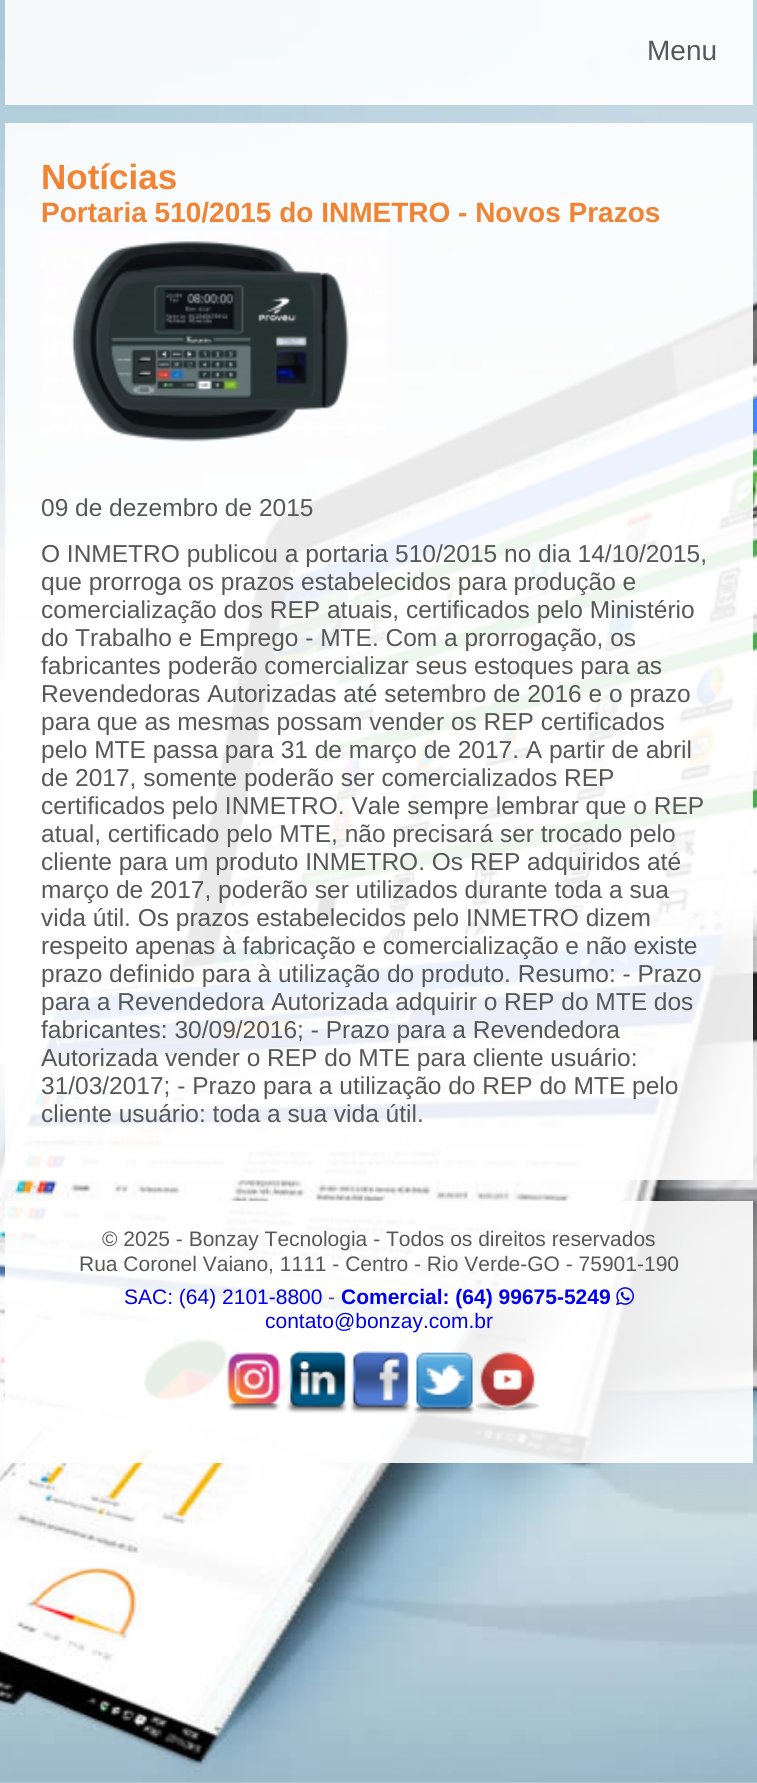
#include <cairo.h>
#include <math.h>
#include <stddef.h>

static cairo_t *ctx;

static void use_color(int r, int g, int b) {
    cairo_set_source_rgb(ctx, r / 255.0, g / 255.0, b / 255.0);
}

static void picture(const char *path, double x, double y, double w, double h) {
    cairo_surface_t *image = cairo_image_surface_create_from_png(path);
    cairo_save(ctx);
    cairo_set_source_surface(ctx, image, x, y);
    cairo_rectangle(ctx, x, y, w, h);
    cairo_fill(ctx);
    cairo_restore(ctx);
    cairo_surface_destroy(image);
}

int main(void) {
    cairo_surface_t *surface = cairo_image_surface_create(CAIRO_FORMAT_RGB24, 757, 1783);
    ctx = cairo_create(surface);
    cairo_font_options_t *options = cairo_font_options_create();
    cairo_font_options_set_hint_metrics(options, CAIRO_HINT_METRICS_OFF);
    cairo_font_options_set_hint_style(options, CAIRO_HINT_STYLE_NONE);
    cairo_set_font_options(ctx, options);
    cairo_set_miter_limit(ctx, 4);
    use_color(255, 255, 255);
    cairo_paint(ctx);
    picture("img1.png", 0, 0, 757, 1783);
    cairo_set_source_rgba(ctx, 1, 1, 1, 0.9);
    cairo_rectangle(ctx, 5, 0, 748, 105);
    cairo_fill(ctx);
    cairo_select_font_face(ctx, "Liberation Sans", CAIRO_FONT_SLANT_NORMAL, CAIRO_FONT_WEIGHT_NORMAL);
    cairo_set_font_size(ctx, 28);
    use_color(87, 87, 87);
    cairo_move_to(ctx, 647, 60);
    cairo_show_text(ctx, "Menu");
    cairo_set_source_rgba(ctx, 1, 1, 1, 0.9);
    cairo_rectangle(ctx, 5, 123, 748, 1057);
    cairo_fill(ctx);
    cairo_select_font_face(ctx, "Liberation Sans", CAIRO_FONT_SLANT_NORMAL, CAIRO_FONT_WEIGHT_BOLD);
    cairo_set_font_size(ctx, 35);
    use_color(241, 131, 50);
    cairo_move_to(ctx, 41, 189);
    cairo_show_text(ctx, "Notícias");
    cairo_set_font_size(ctx, 28);
    cairo_move_to(ctx, 41, 222);
    cairo_show_text(ctx, "Portaria 510/2015 do INMETRO - Novos Prazos");
    picture("img2.png", 40, 229, 348, 213);
    cairo_select_font_face(ctx, "Liberation Sans", CAIRO_FONT_SLANT_NORMAL, CAIRO_FONT_WEIGHT_NORMAL);
    cairo_set_font_size(ctx, 24.5);
    use_color(87, 87, 87);
    cairo_move_to(ctx, 41, 516);
    cairo_show_text(ctx, "09 de dezembro de 2015");
    cairo_move_to(ctx, 41, 562);
    cairo_show_text(ctx, "O INMETRO publicou a portaria 510/2015 no dia 14/10/2015,");
    cairo_move_to(ctx, 41, 590);
    cairo_show_text(ctx, "que prorroga os prazos estabelecidos para produção e");
    cairo_move_to(ctx, 41, 618);
    cairo_show_text(ctx, "comercialização dos REP atuais, certificados pelo Ministério");
    cairo_move_to(ctx, 41, 646);
    cairo_show_text(ctx, "do Trabalho e Emprego - MTE. Com a prorrogação, os");
    cairo_move_to(ctx, 41, 674);
    cairo_show_text(ctx, "fabricantes poderão comercializar seus estoques para as");
    cairo_move_to(ctx, 41, 702);
    cairo_show_text(ctx, "Revendedoras Autorizadas até setembro de 2016 e o prazo");
    cairo_move_to(ctx, 41, 730);
    cairo_show_text(ctx, "para que as mesmas possam vender os REP certificados");
    cairo_move_to(ctx, 41, 758);
    cairo_show_text(ctx, "pelo MTE passa para 31 de março de 2017. A partir de abril");
    cairo_move_to(ctx, 41, 786);
    cairo_show_text(ctx, "de 2017, somente poderão ser comercializados REP");
    cairo_move_to(ctx, 41, 814);
    cairo_show_text(ctx, "certificados pelo INMETRO. Vale sempre lembrar que o REP");
    cairo_move_to(ctx, 41, 842);
    cairo_show_text(ctx, "atual, certificado pelo MTE, não precisará ser trocado pelo");
    cairo_move_to(ctx, 41, 870);
    cairo_show_text(ctx, "cliente para um produto INMETRO. Os REP adquiridos até");
    cairo_move_to(ctx, 41, 898);
    cairo_show_text(ctx, "março de 2017, poderão ser utilizados durante toda a sua");
    cairo_move_to(ctx, 41, 926);
    cairo_show_text(ctx, "vida útil. Os prazos estabelecidos pelo INMETRO dizem");
    cairo_move_to(ctx, 41, 954);
    cairo_show_text(ctx, "respeito apenas à fabricação e comercialização e não existe");
    cairo_move_to(ctx, 41, 982);
    cairo_show_text(ctx, "prazo definido para à utilização do produto. Resumo: - Prazo");
    cairo_move_to(ctx, 41, 1010);
    cairo_show_text(ctx, "para a Revendedora Autorizada adquirir o REP do MTE dos");
    cairo_move_to(ctx, 41, 1038);
    cairo_show_text(ctx, "fabricantes: 30/09/2016; - Prazo para a Revendedora");
    cairo_move_to(ctx, 41, 1066);
    cairo_show_text(ctx, "Autorizada vender o REP do MTE para cliente usuário:");
    cairo_move_to(ctx, 41, 1094);
    cairo_show_text(ctx, "31/03/2017; - Prazo para a utilização do REP do MTE pelo");
    cairo_move_to(ctx, 41, 1122);
    cairo_show_text(ctx, "cliente usuário: toda a sua vida útil.");
    cairo_set_source_rgba(ctx, 1, 1, 1, 0.9);
    cairo_rectangle(ctx, 5, 1201, 748, 262);
    cairo_fill(ctx);
    cairo_set_font_size(ctx, 21);
    use_color(87, 87, 87);
    cairo_move_to(ctx, 102, 1246);
    cairo_show_text(ctx, "© 2025 - Bonzay Tecnologia - Todos os direitos reservados");
    cairo_move_to(ctx, 79, 1271);
    cairo_show_text(ctx, "Rua Coronel Vaiano, 1111 - Centro - Rio Verde-GO - 75901-190");
    use_color(0, 0, 238);
    cairo_move_to(ctx, 124, 1304);
    cairo_show_text(ctx, "SAC: (64) 2101-8800");
    use_color(87, 87, 87);
    cairo_move_to(ctx, 328, 1304);
    cairo_show_text(ctx, "-");
    cairo_select_font_face(ctx, "Liberation Sans", CAIRO_FONT_SLANT_NORMAL, CAIRO_FONT_WEIGHT_BOLD);
    use_color(0, 0, 238);
    cairo_move_to(ctx, 341, 1304);
    cairo_show_text(ctx, "Comercial: (64) 99675-5249");
    picture("img3.png", 616, 1287, 18, 19);
    cairo_select_font_face(ctx, "Liberation Sans", CAIRO_FONT_SLANT_NORMAL, CAIRO_FONT_WEIGHT_NORMAL);
    cairo_move_to(ctx, 265, 1328);
    cairo_show_text(ctx, "contato@bonzay.com.br");
    picture("img4.png", 227, 1352, 54, 59);
    picture("img5.png", 286, 1351, 62, 63);
    picture("img6.png", 350, 1351, 61, 63);
    picture("img7.png", 412, 1352, 63, 62);
    picture("img8.png", 476, 1351, 63, 60);
    cairo_surface_write_to_png(surface, "result.png");
    cairo_font_options_destroy(options);
    cairo_destroy(ctx);
    cairo_surface_destroy(surface);
    return 0;
}
